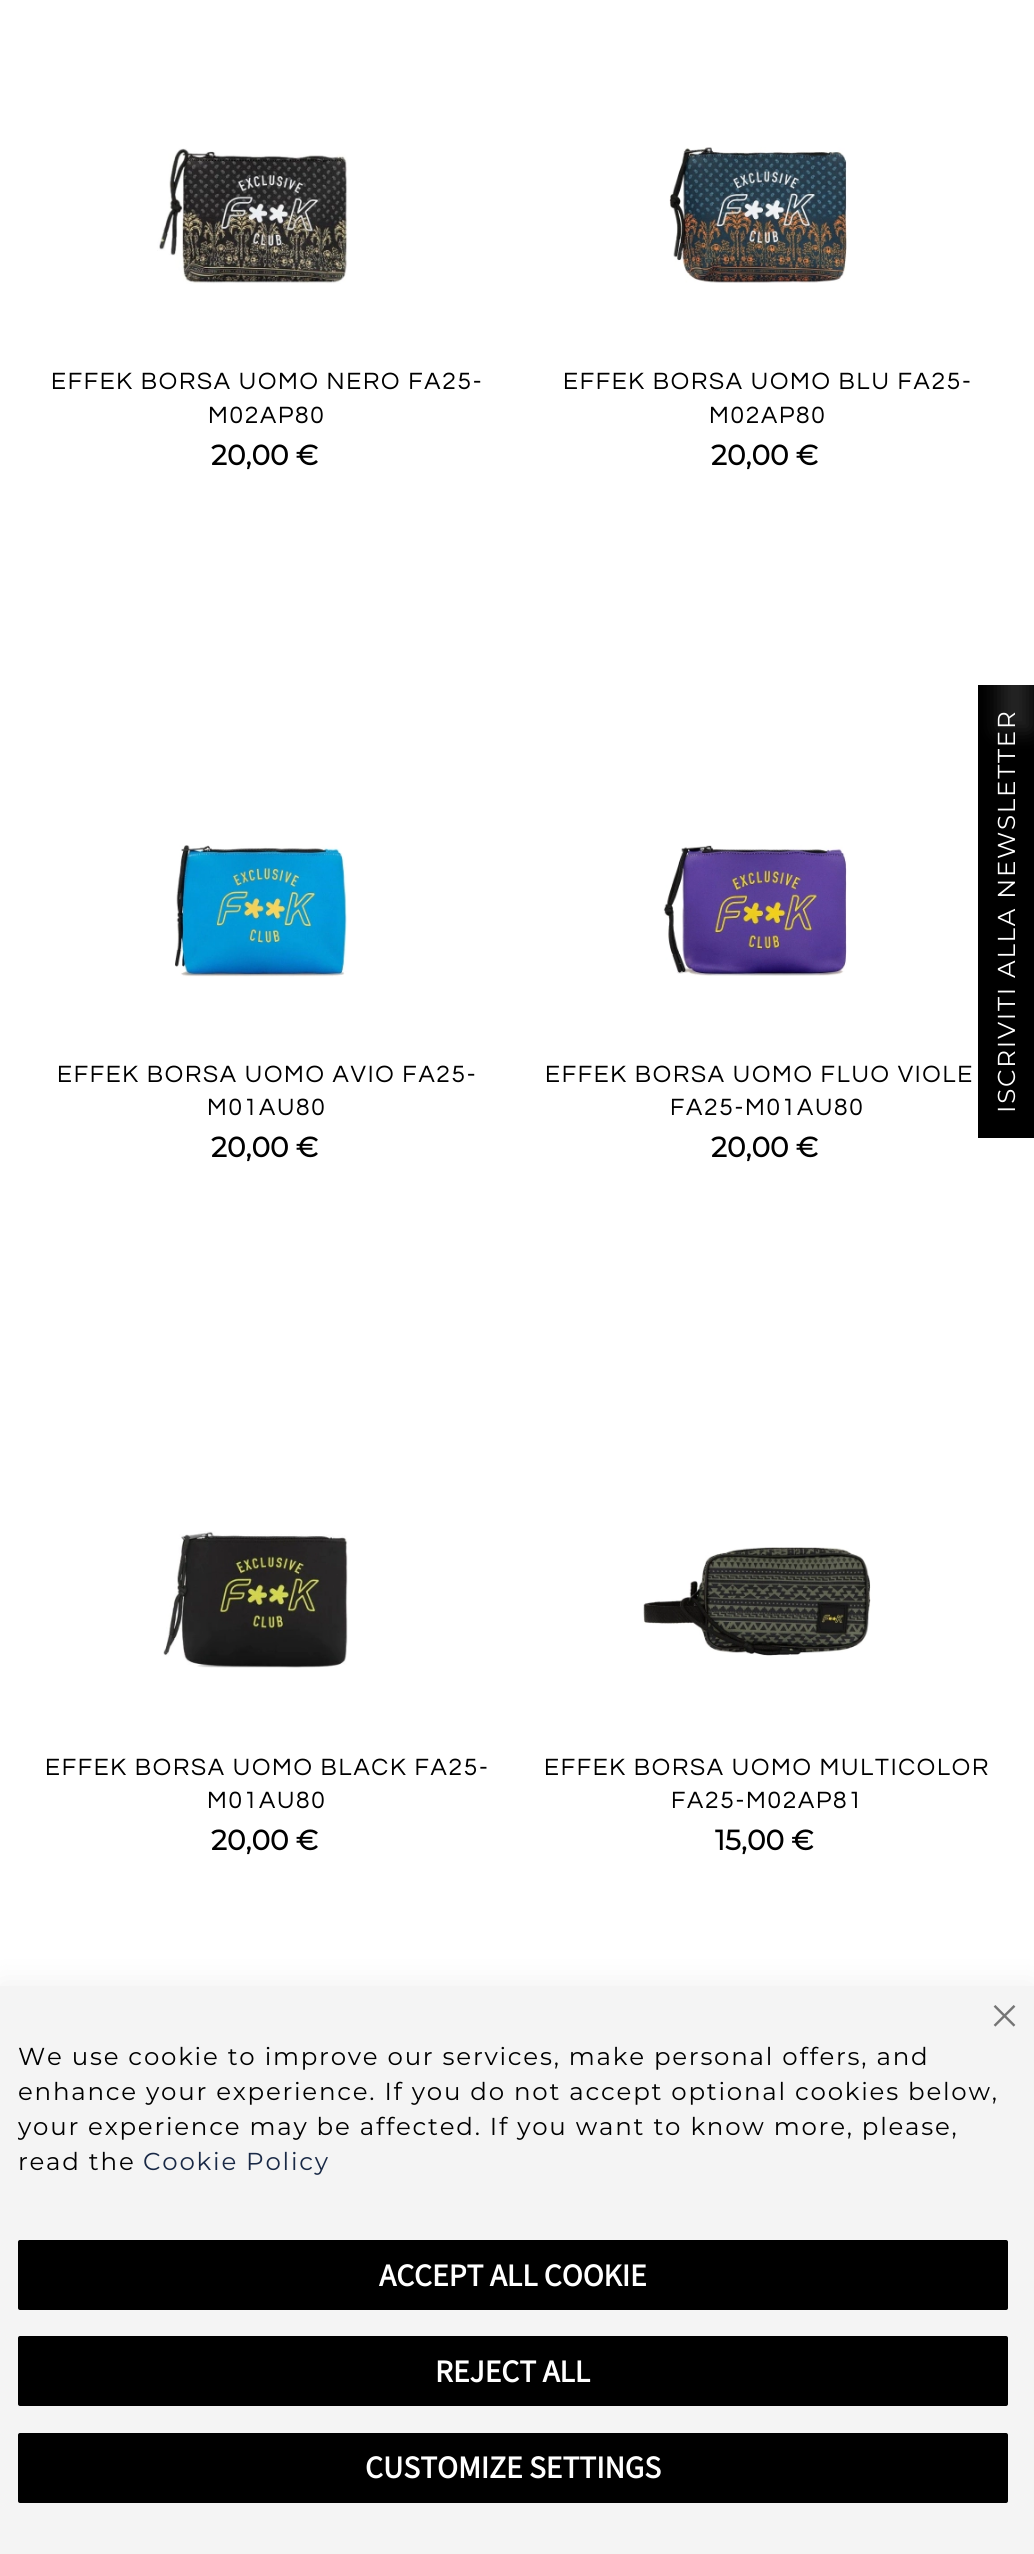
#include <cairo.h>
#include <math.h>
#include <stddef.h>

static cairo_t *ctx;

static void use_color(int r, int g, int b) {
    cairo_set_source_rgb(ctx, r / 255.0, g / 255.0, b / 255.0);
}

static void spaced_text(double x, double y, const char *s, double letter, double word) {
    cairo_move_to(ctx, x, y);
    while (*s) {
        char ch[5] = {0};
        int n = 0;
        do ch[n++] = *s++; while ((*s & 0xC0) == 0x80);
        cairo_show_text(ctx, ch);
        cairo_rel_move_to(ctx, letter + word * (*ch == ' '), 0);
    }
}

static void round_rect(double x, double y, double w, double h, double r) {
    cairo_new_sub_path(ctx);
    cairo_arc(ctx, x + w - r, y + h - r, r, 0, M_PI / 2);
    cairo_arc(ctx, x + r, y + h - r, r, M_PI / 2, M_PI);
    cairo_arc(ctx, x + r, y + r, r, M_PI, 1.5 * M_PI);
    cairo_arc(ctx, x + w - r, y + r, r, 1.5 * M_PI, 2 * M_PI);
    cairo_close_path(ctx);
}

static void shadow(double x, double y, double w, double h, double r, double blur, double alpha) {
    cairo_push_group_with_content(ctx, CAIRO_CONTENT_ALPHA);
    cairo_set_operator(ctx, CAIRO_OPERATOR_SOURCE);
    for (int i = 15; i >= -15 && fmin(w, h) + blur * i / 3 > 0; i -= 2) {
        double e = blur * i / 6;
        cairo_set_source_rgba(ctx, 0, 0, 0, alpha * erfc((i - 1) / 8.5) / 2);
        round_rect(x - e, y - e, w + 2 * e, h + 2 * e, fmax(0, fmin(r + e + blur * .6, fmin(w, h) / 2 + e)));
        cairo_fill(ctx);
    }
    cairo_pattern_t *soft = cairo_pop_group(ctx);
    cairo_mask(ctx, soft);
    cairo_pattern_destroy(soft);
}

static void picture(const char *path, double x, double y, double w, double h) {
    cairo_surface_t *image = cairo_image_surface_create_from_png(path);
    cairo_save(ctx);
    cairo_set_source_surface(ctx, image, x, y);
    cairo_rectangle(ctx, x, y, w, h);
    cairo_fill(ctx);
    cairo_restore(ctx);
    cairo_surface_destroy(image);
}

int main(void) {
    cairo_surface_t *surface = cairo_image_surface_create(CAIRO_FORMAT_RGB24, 1034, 2554);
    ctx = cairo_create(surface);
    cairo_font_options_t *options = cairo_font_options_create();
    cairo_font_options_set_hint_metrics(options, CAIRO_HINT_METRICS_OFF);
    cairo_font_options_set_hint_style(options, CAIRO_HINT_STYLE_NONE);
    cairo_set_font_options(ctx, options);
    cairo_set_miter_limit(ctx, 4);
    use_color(255, 255, 255);
    cairo_paint(ctx);
    picture("img1.png", 157, 148, 191, 136);
    cairo_select_font_face(ctx, "Questrial", CAIRO_FONT_SLANT_NORMAL, CAIRO_FONT_WEIGHT_NORMAL);
    cairo_set_font_size(ctx, 24.5);
    use_color(0, 0, 0);
    spaced_text(51, 389, "EFFEK BORSA UOMO NERO FA25-", 1.75, 0);
    spaced_text(208, 423, "M02AP80", 1.75, 0);
    cairo_select_font_face(ctx, "Montserrat", CAIRO_FONT_SLANT_NORMAL, CAIRO_FONT_WEIGHT_BOLD);
    cairo_set_font_size(ctx, 28);
    cairo_move_to(ctx, 211, 465);
    cairo_show_text(ctx, "20,00 €");
    picture("img2.png", 669, 147, 178, 136);
    cairo_select_font_face(ctx, "Questrial", CAIRO_FONT_SLANT_NORMAL, CAIRO_FONT_WEIGHT_NORMAL);
    cairo_set_font_size(ctx, 24.5);
    spaced_text(563, 389, "EFFEK BORSA UOMO BLU FA25-", 1.75, 0);
    spaced_text(709, 423, "M02AP80", 1.75, 0);
    cairo_select_font_face(ctx, "Montserrat", CAIRO_FONT_SLANT_NORMAL, CAIRO_FONT_WEIGHT_BOLD);
    cairo_set_font_size(ctx, 28);
    cairo_move_to(ctx, 711, 465);
    cairo_show_text(ctx, "20,00 €");
    picture("img3.png", 175, 845, 173, 132);
    cairo_select_font_face(ctx, "Questrial", CAIRO_FONT_SLANT_NORMAL, CAIRO_FONT_WEIGHT_NORMAL);
    cairo_set_font_size(ctx, 24.5);
    spaced_text(57, 1082, "EFFEK BORSA UOMO AVIO FA25-", 1.75, 0);
    spaced_text(207, 1115, "M01AU80", 1.75, 0);
    cairo_select_font_face(ctx, "Montserrat", CAIRO_FONT_SLANT_NORMAL, CAIRO_FONT_WEIGHT_BOLD);
    cairo_set_font_size(ctx, 28);
    cairo_move_to(ctx, 211, 1157);
    cairo_show_text(ctx, "20,00 €");
    picture("img4.png", 663, 845, 184, 131);
    cairo_select_font_face(ctx, "Questrial", CAIRO_FONT_SLANT_NORMAL, CAIRO_FONT_WEIGHT_NORMAL);
    cairo_set_font_size(ctx, 24.5);
    spaced_text(545, 1082, "EFFEK BORSA UOMO FLUO VIOLE", 1.75, 0);
    spaced_text(670, 1115, "FA25-M01AU80", 1.75, 0);
    cairo_select_font_face(ctx, "Montserrat", CAIRO_FONT_SLANT_NORMAL, CAIRO_FONT_WEIGHT_BOLD);
    cairo_set_font_size(ctx, 28);
    cairo_move_to(ctx, 711, 1157);
    cairo_show_text(ctx, "20,00 €");
    picture("img5.png", 163, 1531, 185, 137);
    cairo_select_font_face(ctx, "Questrial", CAIRO_FONT_SLANT_NORMAL, CAIRO_FONT_WEIGHT_NORMAL);
    cairo_set_font_size(ctx, 24.5);
    spaced_text(45, 1775, "EFFEK BORSA UOMO BLACK FA25-", 1.75, 0);
    spaced_text(207, 1808, "M01AU80", 1.75, 0);
    cairo_select_font_face(ctx, "Montserrat", CAIRO_FONT_SLANT_NORMAL, CAIRO_FONT_WEIGHT_BOLD);
    cairo_set_font_size(ctx, 28);
    cairo_move_to(ctx, 211, 1850);
    cairo_show_text(ctx, "20,00 €");
    picture("img6.png", 643, 1547, 228, 109);
    cairo_select_font_face(ctx, "Questrial", CAIRO_FONT_SLANT_NORMAL, CAIRO_FONT_WEIGHT_NORMAL);
    cairo_set_font_size(ctx, 24.5);
    spaced_text(544, 1775, "EFFEK BORSA UOMO MULTICOLOR", 1.75, 0);
    spaced_text(671, 1808, "FA25-M02AP81", 1.75, 0);
    cairo_select_font_face(ctx, "Montserrat", CAIRO_FONT_SLANT_NORMAL, CAIRO_FONT_WEIGHT_BOLD);
    cairo_set_font_size(ctx, 28);
    cairo_move_to(ctx, 715, 1850);
    cairo_show_text(ctx, "15,00 €");
    cairo_rectangle(ctx, 978, 685, 56, 453);
    cairo_fill(ctx);
    use_color(255, 255, 255);
    shadow(999, 642, 32, 88, 0, 10.5, 0.15);
    cairo_select_font_face(ctx, "Montserrat", CAIRO_FONT_SLANT_NORMAL, CAIRO_FONT_WEIGHT_NORMAL);
    cairo_set_font_size(ctx, 24.5);
    use_color(255, 255, 255);
    cairo_save(ctx);
    cairo_translate(ctx, 1015, 1113);
    cairo_rotate(ctx, -90 * M_PI / 180);
    spaced_text(0, 0, "ISCRIVITI ALLA NEWSLETTER", 1.75, 0);
    cairo_restore(ctx);
    use_color(0, 0, 0);
    shadow(0, 1983, 1034, 569, 0, 16, 0.06);
    use_color(244, 244, 244);
    cairo_rectangle(ctx, 0, 1986, 1034, 568);
    cairo_fill(ctx);
    picture("img7.png", 993, 2005, 23, 22);
    use_color(0, 0, 0);
    spaced_text(18, 2065, "We use cookie to improve our services, make personal offers, and", 1.75, 0);
    spaced_text(18, 2100, "enhance your experience. If you do not accept optional cookies below,", 1.75, 0);
    cairo_save(ctx);
    cairo_rectangle(ctx, 18, 2039, 999, 140);
    cairo_clip(ctx);
    spaced_text(18, 2135, "your experience may be affected. If you want to know more, please,", 1.75, 0);
    cairo_restore(ctx);
    spaced_text(18, 2170, "read the", 1.75, 0);
    use_color(25, 41, 70);
    spaced_text(143, 2170, "Cookie Policy", 1.75, 0);
    use_color(0, 0, 0);
    round_rect(19, 2241, 988, 68, 1);
    cairo_fill_preserve(ctx);
    cairo_stroke(ctx);
    cairo_select_font_face(ctx, "Source Sans Pro", CAIRO_FONT_SLANT_NORMAL, CAIRO_FONT_WEIGHT_BOLD);
    cairo_set_font_size(ctx, 31.5);
    use_color(255, 255, 255);
    cairo_move_to(ctx, 379, 2286);
    cairo_show_text(ctx, "ACCEPT ALL COOKIE");
    use_color(0, 0, 0);
    round_rect(19, 2337, 988, 68, 1);
    cairo_fill_preserve(ctx);
    cairo_stroke(ctx);
    use_color(255, 255, 255);
    cairo_move_to(ctx, 435, 2382);
    cairo_show_text(ctx, "REJECT ALL");
    use_color(0, 0, 0);
    round_rect(19, 2434, 988, 68, 1);
    cairo_fill_preserve(ctx);
    cairo_stroke(ctx);
    use_color(255, 255, 255);
    cairo_move_to(ctx, 365, 2478);
    cairo_show_text(ctx, "CUSTOMIZE SETTINGS");
    cairo_surface_write_to_png(surface, "result.png");
    cairo_font_options_destroy(options);
    cairo_destroy(ctx);
    cairo_surface_destroy(surface);
    return 0;
}
